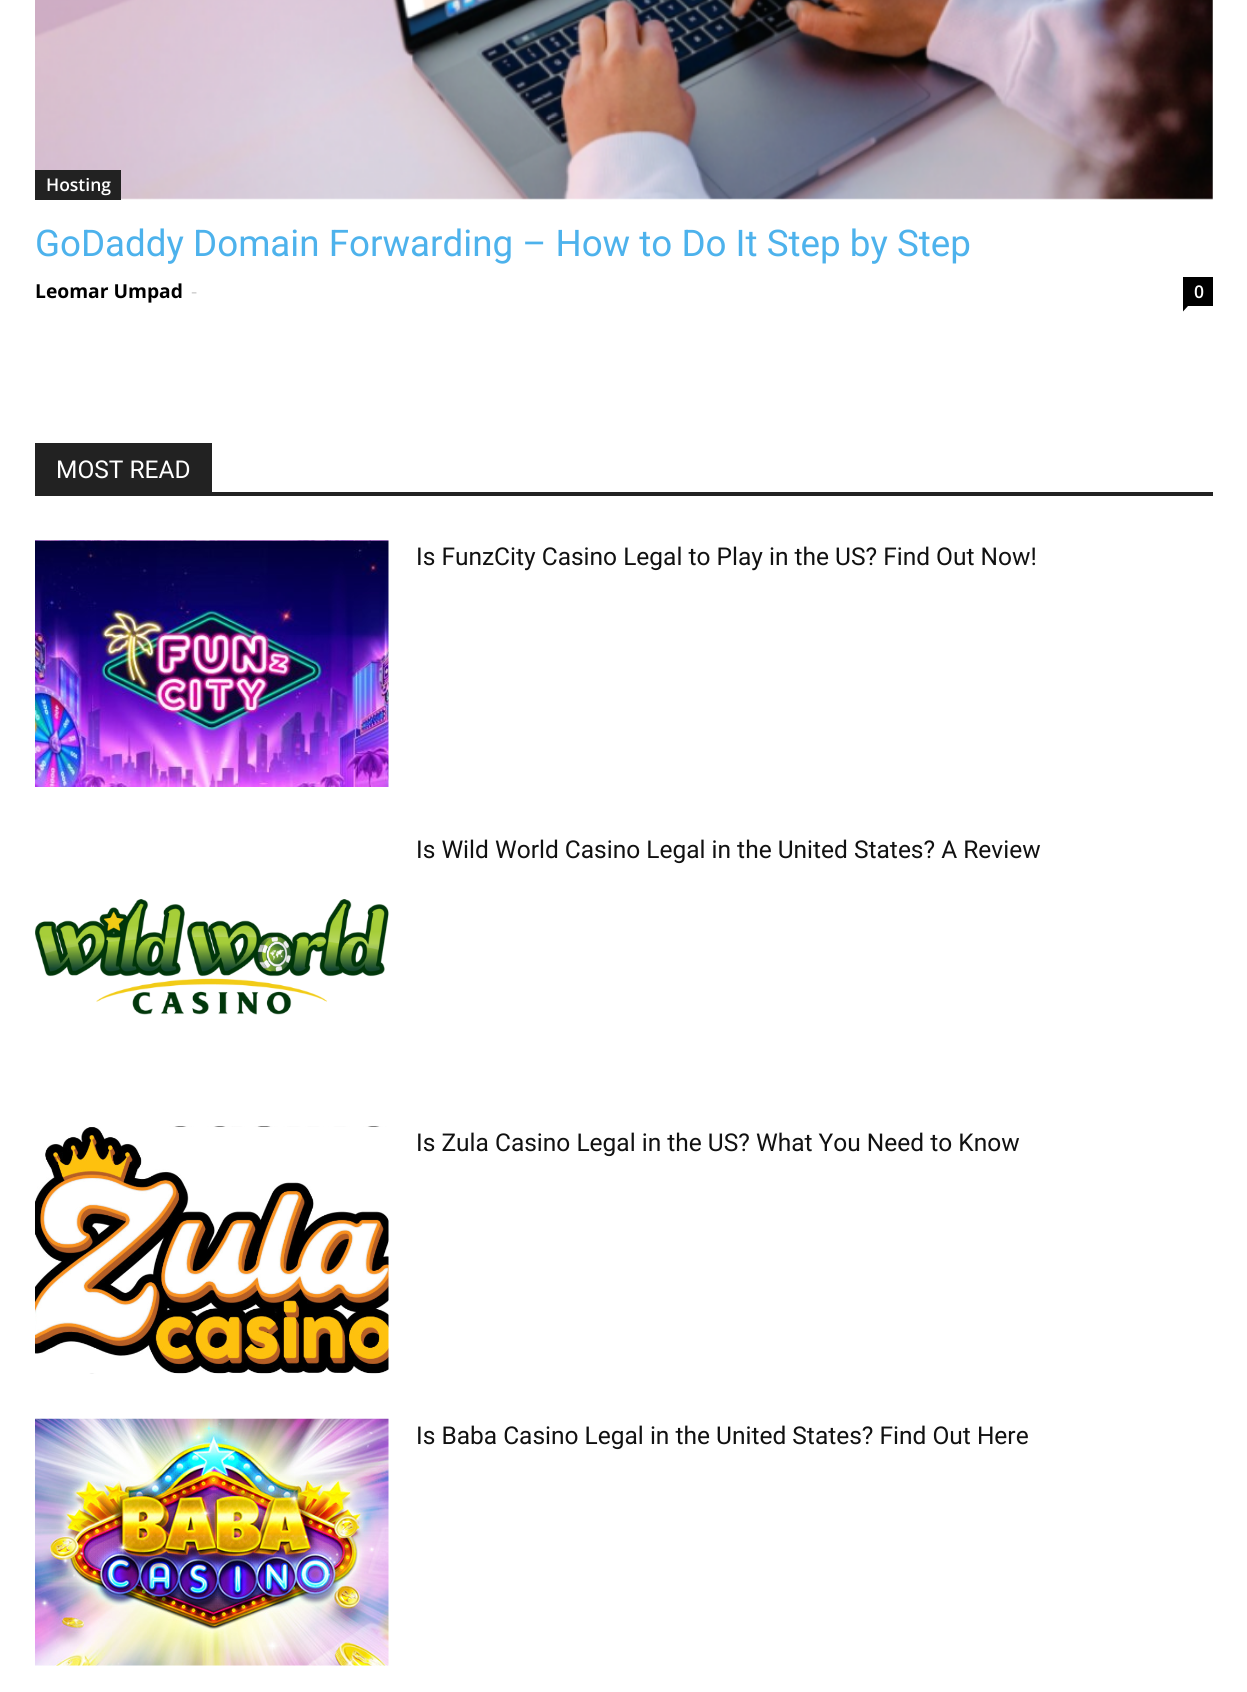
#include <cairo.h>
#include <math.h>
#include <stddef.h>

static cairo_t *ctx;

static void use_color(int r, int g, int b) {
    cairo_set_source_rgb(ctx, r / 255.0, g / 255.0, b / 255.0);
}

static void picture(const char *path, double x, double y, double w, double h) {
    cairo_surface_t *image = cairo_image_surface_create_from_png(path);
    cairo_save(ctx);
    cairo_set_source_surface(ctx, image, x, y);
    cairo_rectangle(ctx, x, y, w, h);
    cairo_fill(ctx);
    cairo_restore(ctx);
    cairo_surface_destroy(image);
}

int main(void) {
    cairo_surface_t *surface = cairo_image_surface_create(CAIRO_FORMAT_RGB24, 1247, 1692);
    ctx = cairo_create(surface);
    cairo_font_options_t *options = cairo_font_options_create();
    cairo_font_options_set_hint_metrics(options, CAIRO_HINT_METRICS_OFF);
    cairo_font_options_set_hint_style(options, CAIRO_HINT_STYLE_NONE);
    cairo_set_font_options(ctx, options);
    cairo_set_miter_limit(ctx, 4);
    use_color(255, 255, 255);
    cairo_paint(ctx);
    picture("img1.png", 35, 0, 1178, 200);
    use_color(34, 34, 34);
    cairo_rectangle(ctx, 35, 170, 86, 30);
    cairo_fill(ctx);
    cairo_select_font_face(ctx, "Open Sans SemiBold", CAIRO_FONT_SLANT_NORMAL, CAIRO_FONT_WEIGHT_NORMAL);
    cairo_set_font_size(ctx, 17.5);
    use_color(255, 255, 255);
    cairo_move_to(ctx, 46, 191);
    cairo_show_text(ctx, "Hosting");
    cairo_select_font_face(ctx, "Roboto", CAIRO_FONT_SLANT_NORMAL, CAIRO_FONT_WEIGHT_NORMAL);
    cairo_set_font_size(ctx, 36.75);
    use_color(77, 178, 236);
    cairo_move_to(ctx, 35, 256);
    cairo_show_text(ctx, "GoDaddy Domain Forwarding – How to Do It Step by Step");
    cairo_select_font_face(ctx, "Open Sans", CAIRO_FONT_SLANT_NORMAL, CAIRO_FONT_WEIGHT_BOLD);
    cairo_set_font_size(ctx, 19.25);
    use_color(0, 0, 0);
    cairo_move_to(ctx, 35, 298);
    cairo_show_text(ctx, "Leomar Umpad");
    cairo_select_font_face(ctx, "Open Sans", CAIRO_FONT_SLANT_NORMAL, CAIRO_FONT_WEIGHT_NORMAL);
    use_color(204, 204, 204);
    cairo_move_to(ctx, 191, 298);
    cairo_show_text(ctx, "-");
    use_color(0, 0, 0);
    cairo_rectangle(ctx, 1183, 277, 30, 29);
    cairo_fill(ctx);
    cairo_select_font_face(ctx, "Open Sans SemiBold", CAIRO_FONT_SLANT_NORMAL, CAIRO_FONT_WEIGHT_NORMAL);
    cairo_set_font_size(ctx, 17.5);
    use_color(255, 255, 255);
    cairo_move_to(ctx, 1194, 298);
    cairo_show_text(ctx, "0");
    use_color(0, 0, 0);
    cairo_new_path(ctx);
    cairo_move_to(ctx, 1183, 306);
    cairo_line_to(ctx, 1188, 306);
    cairo_line_to(ctx, 1183, 311.5);
    cairo_close_path(ctx);
    cairo_fill(ctx);
    use_color(34, 34, 34);
    cairo_rectangle(ctx, 35, 492, 1178, 4);
    cairo_fill(ctx);
    cairo_rectangle(ctx, 35, 443, 177, 49);
    cairo_fill(ctx);
    cairo_select_font_face(ctx, "Roboto", CAIRO_FONT_SLANT_NORMAL, CAIRO_FONT_WEIGHT_NORMAL);
    cairo_set_font_size(ctx, 24.5);
    use_color(255, 255, 255);
    cairo_move_to(ctx, 56, 478);
    cairo_show_text(ctx, "MOST READ");
    picture("img2.png", 35, 540, 354, 247);
    use_color(17, 17, 17);
    cairo_move_to(ctx, 416, 565);
    cairo_show_text(ctx, "Is FunzCity Casino Legal to Play in the US? Find Out Now!");
    cairo_move_to(ctx, 416, 858);
    cairo_show_text(ctx, "Is Wild World Casino Legal in the United States? A Review");
    picture("img3.png", 35, 899, 354, 116);
    picture("img4.png", 35, 1126, 354, 248);
    cairo_move_to(ctx, 416, 1151);
    cairo_show_text(ctx, "Is Zula Casino Legal in the US? What You Need to Know");
    picture("img5.png", 35, 1418, 354, 248);
    cairo_move_to(ctx, 416, 1444);
    cairo_show_text(ctx, "Is Baba Casino Legal in the United States? Find Out Here");
    cairo_surface_write_to_png(surface, "result.png");
    cairo_font_options_destroy(options);
    cairo_destroy(ctx);
    cairo_surface_destroy(surface);
    return 0;
}
